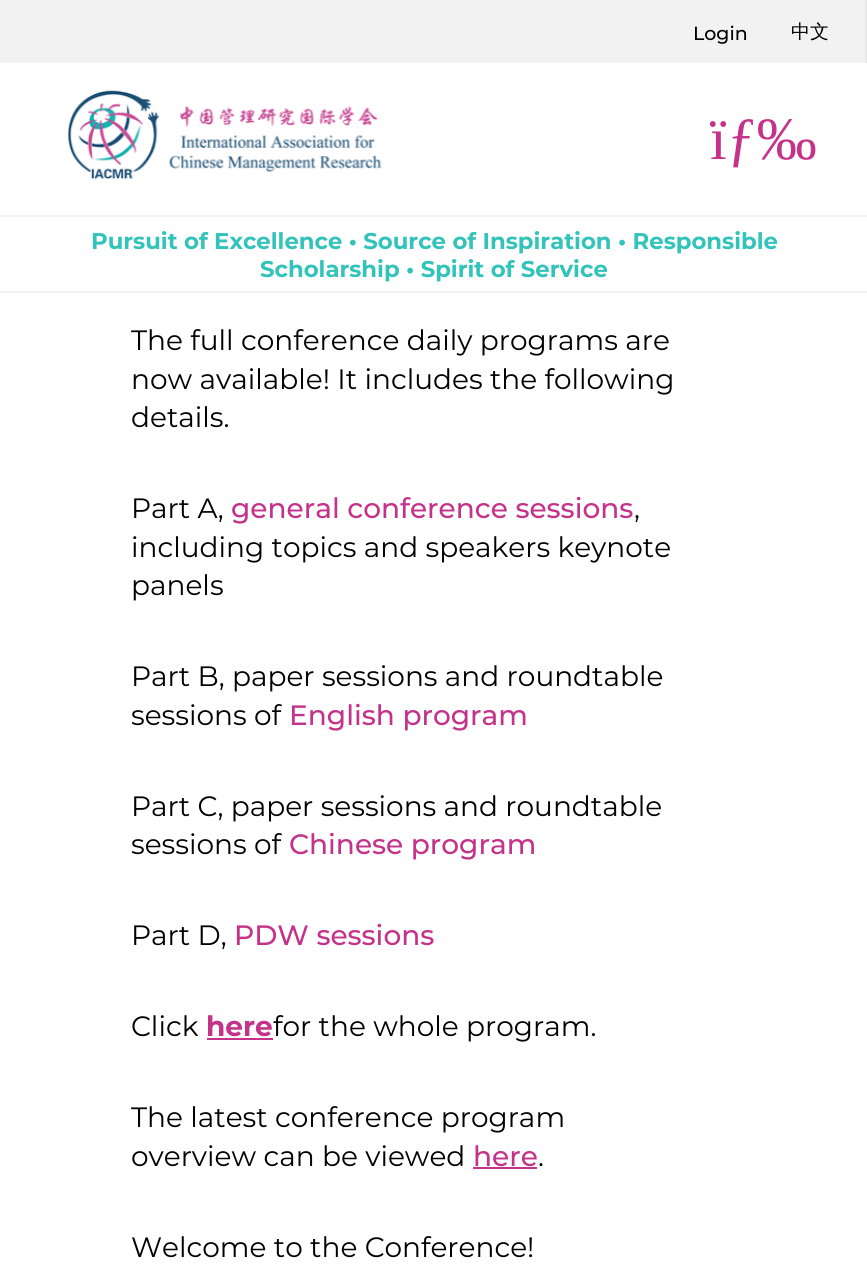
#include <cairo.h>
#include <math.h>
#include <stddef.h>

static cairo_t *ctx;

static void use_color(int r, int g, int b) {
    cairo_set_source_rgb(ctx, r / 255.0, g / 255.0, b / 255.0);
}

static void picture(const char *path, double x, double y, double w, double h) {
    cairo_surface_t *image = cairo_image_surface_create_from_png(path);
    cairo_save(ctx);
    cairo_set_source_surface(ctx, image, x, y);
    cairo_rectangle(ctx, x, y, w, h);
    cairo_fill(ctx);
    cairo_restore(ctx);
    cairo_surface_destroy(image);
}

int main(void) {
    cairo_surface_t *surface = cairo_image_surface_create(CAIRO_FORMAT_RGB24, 867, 1266);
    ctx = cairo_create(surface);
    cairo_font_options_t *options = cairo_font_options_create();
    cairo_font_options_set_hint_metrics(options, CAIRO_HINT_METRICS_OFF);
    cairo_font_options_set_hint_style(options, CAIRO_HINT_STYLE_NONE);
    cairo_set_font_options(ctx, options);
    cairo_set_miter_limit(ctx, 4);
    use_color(255, 255, 255);
    cairo_paint(ctx);
    use_color(242, 242, 242);
    cairo_rectangle(ctx, 0, 0, 867, 217);
    cairo_fill(ctx);
    use_color(232, 232, 232);
    cairo_rectangle(ctx, 865, 0, 2, 63);
    cairo_fill(ctx);
    cairo_select_font_face(ctx, "Montserrat Medium", CAIRO_FONT_SLANT_NORMAL, CAIRO_FONT_WEIGHT_NORMAL);
    cairo_set_font_size(ctx, 19);
    use_color(0, 0, 0);
    cairo_move_to(ctx, 693, 40);
    cairo_show_text(ctx, "Login");
    cairo_select_font_face(ctx, "WenQuanYi Zen Hei Medium", CAIRO_FONT_SLANT_NORMAL, CAIRO_FONT_WEIGHT_NORMAL);
    cairo_move_to(ctx, 791, 38);
    cairo_show_text(ctx, "中文");
    use_color(255, 255, 255);
    cairo_rectangle(ctx, 0, 63, 867, 152);
    cairo_fill(ctx);
    picture("img1.png", 68, 90, 314, 90);
    cairo_select_font_face(ctx, "Liberation Serif", CAIRO_FONT_SLANT_NORMAL, CAIRO_FONT_WEIGHT_NORMAL);
    cairo_set_font_size(ctx, 60);
    use_color(196, 50, 137);
    cairo_move_to(ctx, 710, 159);
    cairo_show_text(ctx, "ïƒ‰");
    use_color(242, 242, 242);
    cairo_rectangle(ctx, 0, 291, 867, 2);
    cairo_fill(ctx);
    cairo_select_font_face(ctx, "Montserrat", CAIRO_FONT_SLANT_NORMAL, CAIRO_FONT_WEIGHT_BOLD);
    cairo_set_font_size(ctx, 22.75);
    use_color(50, 195, 186);
    cairo_move_to(ctx, 91, 249);
    cairo_show_text(ctx, "Pursuit of Excellence • Source of Inspiration • Responsible");
    cairo_move_to(ctx, 260, 277);
    cairo_show_text(ctx, "Scholarship • Spirit of Service");
    cairo_select_font_face(ctx, "Montserrat", CAIRO_FONT_SLANT_NORMAL, CAIRO_FONT_WEIGHT_NORMAL);
    cairo_set_font_size(ctx, 28);
    use_color(0, 0, 0);
    cairo_move_to(ctx, 131, 350);
    cairo_show_text(ctx, "The full conference daily programs are");
    cairo_move_to(ctx, 131, 389);
    cairo_show_text(ctx, "now available! It includes the following");
    cairo_move_to(ctx, 131, 427);
    cairo_show_text(ctx, "details.");
    cairo_move_to(ctx, 131, 518);
    cairo_show_text(ctx, "Part A,");
    cairo_select_font_face(ctx, "Montserrat Medium", CAIRO_FONT_SLANT_NORMAL, CAIRO_FONT_WEIGHT_NORMAL);
    use_color(196, 50, 137);
    cairo_move_to(ctx, 231, 518);
    cairo_show_text(ctx, "general conference sessions");
    cairo_select_font_face(ctx, "Montserrat", CAIRO_FONT_SLANT_NORMAL, CAIRO_FONT_WEIGHT_NORMAL);
    use_color(0, 0, 0);
    cairo_move_to(ctx, 634, 518);
    cairo_show_text(ctx, ",");
    cairo_move_to(ctx, 131, 557);
    cairo_show_text(ctx, "including topics and speakers keynote");
    cairo_move_to(ctx, 131, 595);
    cairo_show_text(ctx, "panels");
    cairo_move_to(ctx, 131, 686);
    cairo_show_text(ctx, "Part B, paper sessions and roundtable");
    cairo_move_to(ctx, 131, 725);
    cairo_show_text(ctx, "sessions of");
    cairo_select_font_face(ctx, "Montserrat Medium", CAIRO_FONT_SLANT_NORMAL, CAIRO_FONT_WEIGHT_NORMAL);
    use_color(196, 50, 137);
    cairo_move_to(ctx, 289, 725);
    cairo_show_text(ctx, "English program");
    cairo_select_font_face(ctx, "Montserrat", CAIRO_FONT_SLANT_NORMAL, CAIRO_FONT_WEIGHT_NORMAL);
    use_color(0, 0, 0);
    cairo_move_to(ctx, 131, 816);
    cairo_show_text(ctx, "Part C, paper sessions and roundtable");
    cairo_move_to(ctx, 131, 854);
    cairo_show_text(ctx, "sessions of");
    cairo_select_font_face(ctx, "Montserrat Medium", CAIRO_FONT_SLANT_NORMAL, CAIRO_FONT_WEIGHT_NORMAL);
    use_color(196, 50, 137);
    cairo_move_to(ctx, 289, 854);
    cairo_show_text(ctx, "Chinese program");
    cairo_select_font_face(ctx, "Montserrat", CAIRO_FONT_SLANT_NORMAL, CAIRO_FONT_WEIGHT_NORMAL);
    use_color(0, 0, 0);
    cairo_move_to(ctx, 131, 945);
    cairo_show_text(ctx, "Part D,");
    cairo_select_font_face(ctx, "Montserrat Medium", CAIRO_FONT_SLANT_NORMAL, CAIRO_FONT_WEIGHT_NORMAL);
    use_color(196, 50, 137);
    cairo_move_to(ctx, 234, 945);
    cairo_show_text(ctx, "PDW sessions");
    cairo_select_font_face(ctx, "Montserrat", CAIRO_FONT_SLANT_NORMAL, CAIRO_FONT_WEIGHT_NORMAL);
    use_color(0, 0, 0);
    cairo_move_to(ctx, 131, 1036);
    cairo_show_text(ctx, "Click");
    cairo_select_font_face(ctx, "Montserrat", CAIRO_FONT_SLANT_NORMAL, CAIRO_FONT_WEIGHT_BOLD);
    use_color(196, 50, 137);
    cairo_move_to(ctx, 206, 1036);
    cairo_show_text(ctx, "here");
    cairo_rectangle(ctx, 207, 1038, 66, 2);
    cairo_fill(ctx);
    cairo_select_font_face(ctx, "Montserrat", CAIRO_FONT_SLANT_NORMAL, CAIRO_FONT_WEIGHT_NORMAL);
    use_color(0, 0, 0);
    cairo_move_to(ctx, 273, 1036);
    cairo_show_text(ctx, "for the whole program.");
    cairo_move_to(ctx, 131, 1127);
    cairo_show_text(ctx, "The latest conference program");
    cairo_move_to(ctx, 131, 1166);
    cairo_show_text(ctx, "overview can be viewed");
    cairo_select_font_face(ctx, "Montserrat Medium", CAIRO_FONT_SLANT_NORMAL, CAIRO_FONT_WEIGHT_NORMAL);
    use_color(196, 50, 137);
    cairo_move_to(ctx, 473, 1166);
    cairo_show_text(ctx, "here");
    cairo_rectangle(ctx, 473, 1167, 64, 2);
    cairo_fill(ctx);
    cairo_select_font_face(ctx, "Montserrat", CAIRO_FONT_SLANT_NORMAL, CAIRO_FONT_WEIGHT_NORMAL);
    use_color(0, 0, 0);
    cairo_move_to(ctx, 538, 1166);
    cairo_show_text(ctx, ".");
    cairo_move_to(ctx, 131, 1257);
    cairo_show_text(ctx, "Welcome to the Conference!");
    cairo_surface_write_to_png(surface, "result.png");
    cairo_font_options_destroy(options);
    cairo_destroy(ctx);
    cairo_surface_destroy(surface);
    return 0;
}
